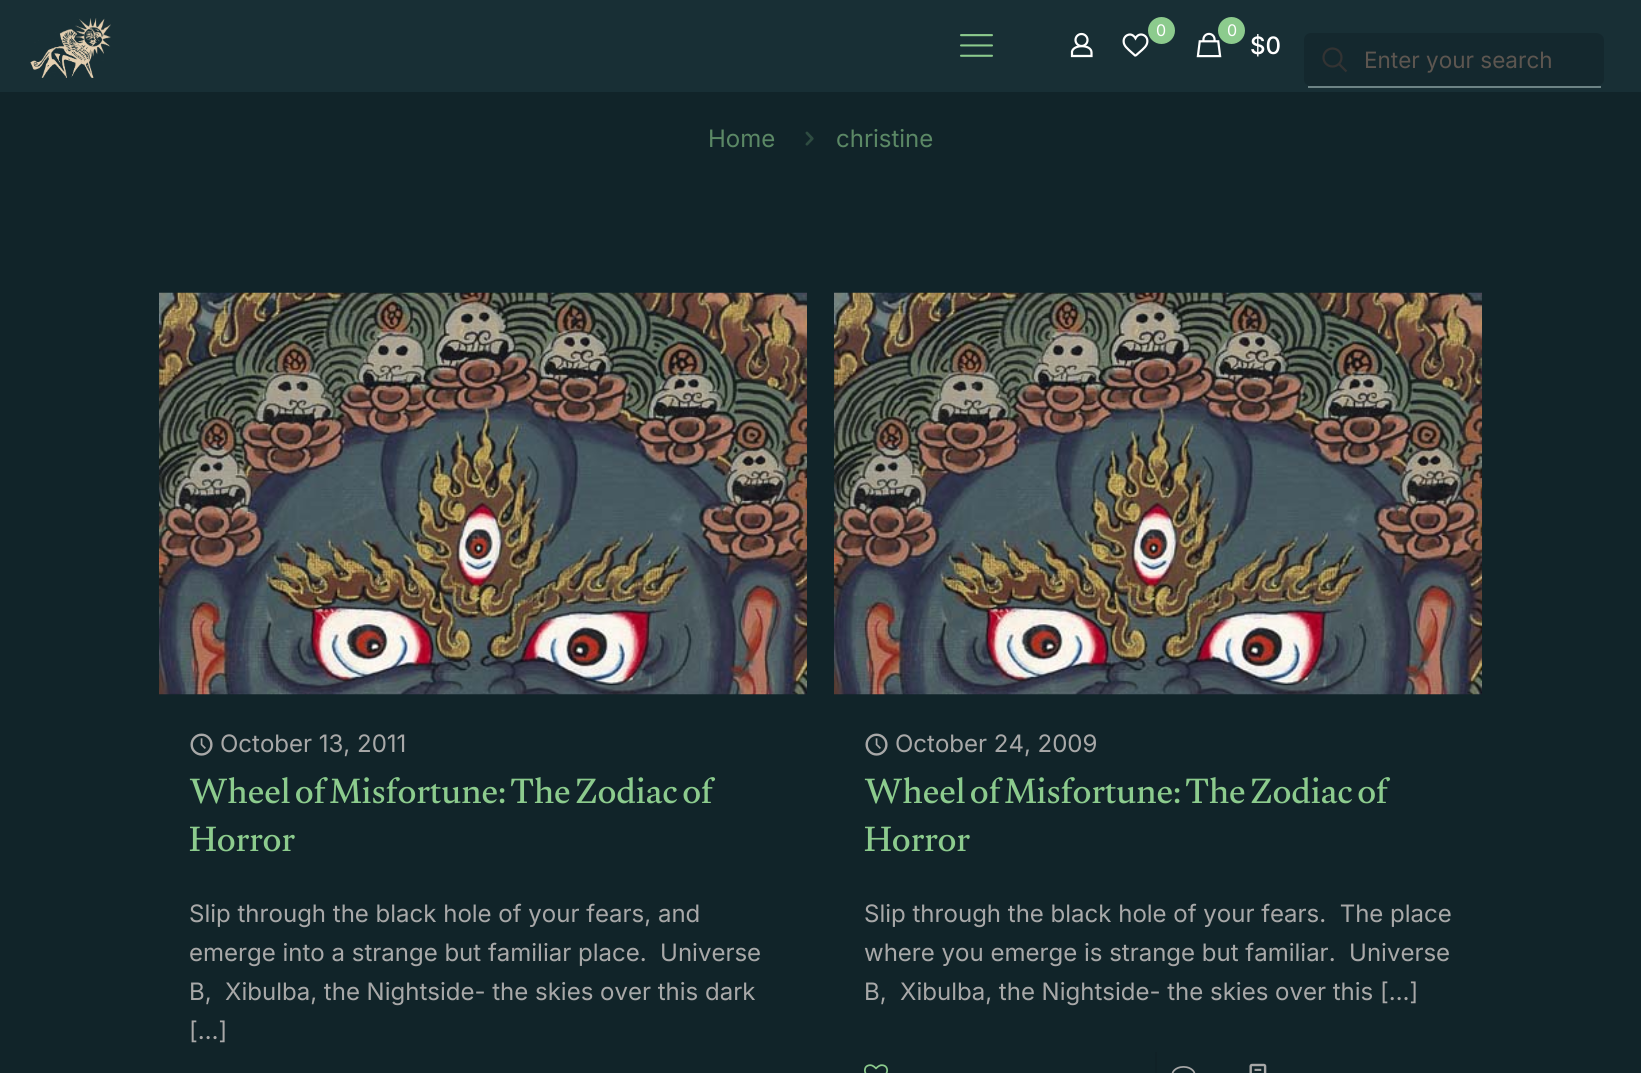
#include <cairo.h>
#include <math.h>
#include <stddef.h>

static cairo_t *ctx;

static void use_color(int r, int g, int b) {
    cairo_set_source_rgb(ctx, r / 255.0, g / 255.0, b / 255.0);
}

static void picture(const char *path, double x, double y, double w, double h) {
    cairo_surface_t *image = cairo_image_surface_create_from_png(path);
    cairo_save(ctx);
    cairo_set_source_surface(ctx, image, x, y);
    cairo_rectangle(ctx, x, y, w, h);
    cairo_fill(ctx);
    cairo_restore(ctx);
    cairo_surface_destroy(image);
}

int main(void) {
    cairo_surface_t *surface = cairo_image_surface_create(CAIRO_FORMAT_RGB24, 1641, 1073);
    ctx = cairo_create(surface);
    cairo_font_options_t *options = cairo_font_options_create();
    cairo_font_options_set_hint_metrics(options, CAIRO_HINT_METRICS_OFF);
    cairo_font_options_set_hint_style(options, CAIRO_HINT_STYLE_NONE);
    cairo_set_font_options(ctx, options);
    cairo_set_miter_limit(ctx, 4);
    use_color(17, 36, 41);
    cairo_paint(ctx);
    use_color(24, 47, 53);
    cairo_rectangle(ctx, 0, 0, 1641, 92);
    cairo_fill(ctx);
    picture("img1.png", 30, 18, 81, 60);
    picture("img2.png", 960, 34, 33, 23);
    cairo_arc(ctx, 1081.5, 40, 6, 0, 2 * M_PI);
    use_color(255, 255, 255);
    cairo_set_line_width(ctx, 2.2);
    cairo_stroke(ctx);
    cairo_new_path(ctx);
    cairo_move_to(ctx, 1091.5, 52.5);
    cairo_line_to(ctx, 1091.5, 56);
    cairo_line_to(ctx, 1072, 56);
    cairo_line_to(ctx, 1072, 51.5);
    cairo_curve_to(ctx, 1074, 44, 1091.5, 44.5, 1091.5, 52.5);
    cairo_close_path(ctx);
    cairo_stroke(ctx);
    picture("img3.png", 1122, 33, 27, 24);
    use_color(140, 203, 141);
    cairo_arc(ctx, 1161.5, 30.5, 13.5, 0, 2 * M_PI);
    cairo_fill(ctx);
    cairo_select_font_face(ctx, "Inter", CAIRO_FONT_SLANT_NORMAL, CAIRO_FONT_WEIGHT_NORMAL);
    cairo_set_font_size(ctx, 16);
    use_color(255, 255, 255);
    cairo_move_to(ctx, 1156, 36);
    cairo_show_text(ctx, "0");
    picture("img4.png", 1196, 32, 26, 26);
    use_color(140, 203, 141);
    cairo_arc(ctx, 1231.5, 30.5, 13.5, 0, 2 * M_PI);
    cairo_fill(ctx);
    use_color(255, 255, 255);
    cairo_move_to(ctx, 1227, 36);
    cairo_show_text(ctx, "0");
    cairo_select_font_face(ctx, "Inter Medium", CAIRO_FONT_SLANT_NORMAL, CAIRO_FONT_WEIGHT_NORMAL);
    cairo_set_font_size(ctx, 24);
    cairo_move_to(ctx, 1250, 54);
    cairo_show_text(ctx, "$0");
    use_color(20, 40, 46);
    cairo_new_path(ctx);
    cairo_move_to(ctx, 1311, 33);
    cairo_line_to(ctx, 1596, 33);
    cairo_curve_to(ctx, 1600, 33, 1604, 36, 1604, 40);
    cairo_line_to(ctx, 1604, 80);
    cairo_curve_to(ctx, 1604, 83, 1600, 86, 1596, 86);
    cairo_line_to(ctx, 1311, 86);
    cairo_curve_to(ctx, 1307, 86, 1304, 83, 1304, 80);
    cairo_line_to(ctx, 1304, 40);
    cairo_curve_to(ctx, 1304, 36, 1307, 33, 1311, 33);
    cairo_close_path(ctx);
    cairo_fill(ctx);
    cairo_arc(ctx, 1332.5, 57.5, 9, 0, 2 * M_PI);
    use_color(51, 51, 51);
    cairo_stroke(ctx);
    cairo_new_path(ctx);
    cairo_move_to(ctx, 1339, 64);
    cairo_line_to(ctx, 1346.5, 71.5);
    cairo_stroke(ctx);
    use_color(109, 131, 133);
    cairo_rectangle(ctx, 1308, 86, 293, 2);
    cairo_fill(ctx);
    cairo_select_font_face(ctx, "Inter", CAIRO_FONT_SLANT_NORMAL, CAIRO_FONT_WEIGHT_NORMAL);
    cairo_set_font_size(ctx, 22.5);
    use_color(93, 86, 80);
    cairo_move_to(ctx, 1364, 68);
    cairo_show_text(ctx, "Enter your search");
    cairo_set_font_size(ctx, 24);
    use_color(91, 136, 101);
    cairo_move_to(ctx, 708, 147);
    cairo_show_text(ctx, "Home");
    picture("img5.png", 805, 131, 9, 15);
    cairo_move_to(ctx, 836, 147);
    cairo_show_text(ctx, "christine");
    picture("img6.png", 159, 292, 648, 403);
    picture("img7.png", 190, 733, 23, 23);
    use_color(168, 168, 168);
    cairo_move_to(ctx, 220, 752);
    cairo_show_text(ctx, "October 13, 2011");
    cairo_select_font_face(ctx, "Gulzar", CAIRO_FONT_SLANT_NORMAL, CAIRO_FONT_WEIGHT_NORMAL);
    cairo_set_font_size(ctx, 36);
    use_color(140, 203, 141);
    cairo_move_to(ctx, 189, 803);
    cairo_show_text(ctx, "Wheel of Misfortune: The Zodiac of");
    cairo_move_to(ctx, 189, 851);
    cairo_show_text(ctx, "Horror");
    cairo_select_font_face(ctx, "Inter", CAIRO_FONT_SLANT_NORMAL, CAIRO_FONT_WEIGHT_NORMAL);
    cairo_set_font_size(ctx, 24);
    use_color(168, 168, 168);
    cairo_move_to(ctx, 189, 922);
    cairo_show_text(ctx, "Slip through the black hole of your fears, and");
    cairo_move_to(ctx, 189, 961);
    cairo_show_text(ctx, "emerge into a strange but familiar place.  Universe");
    cairo_move_to(ctx, 189, 1000);
    cairo_show_text(ctx, "B,  Xibulba, the Nightside- the skies over this dark");
    cairo_move_to(ctx, 189, 1039);
    cairo_show_text(ctx, "[…]");
    picture("img8.png", 834, 292, 648, 403);
    picture("img7.png", 865, 733, 23, 23);
    cairo_move_to(ctx, 895, 752);
    cairo_show_text(ctx, "October 24, 2009");
    cairo_select_font_face(ctx, "Gulzar", CAIRO_FONT_SLANT_NORMAL, CAIRO_FONT_WEIGHT_NORMAL);
    cairo_set_font_size(ctx, 36);
    use_color(140, 203, 141);
    cairo_move_to(ctx, 864, 803);
    cairo_show_text(ctx, "Wheel of Misfortune: The Zodiac of");
    cairo_move_to(ctx, 864, 851);
    cairo_show_text(ctx, "Horror");
    cairo_select_font_face(ctx, "Inter", CAIRO_FONT_SLANT_NORMAL, CAIRO_FONT_WEIGHT_NORMAL);
    cairo_set_font_size(ctx, 24);
    use_color(168, 168, 168);
    cairo_move_to(ctx, 864, 922);
    cairo_show_text(ctx, "Slip through the black hole of your fears.  The place");
    cairo_move_to(ctx, 864, 961);
    cairo_show_text(ctx, "where you emerge is strange but familiar.  Universe");
    cairo_move_to(ctx, 864, 1000);
    cairo_show_text(ctx, "B,  Xibulba, the Nightside- the skies over this […]");
    picture("img9.png", 864, 1064, 24, 9);
    use_color(16, 33, 38);
    cairo_rectangle(ctx, 1155, 1052, 2, 21);
    cairo_fill(ctx);
    picture("img10.png", 1171, 1066, 25, 7);
    picture("img11.png", 1249, 1063, 18, 10);
    cairo_surface_write_to_png(surface, "result.png");
    cairo_font_options_destroy(options);
    cairo_destroy(ctx);
    cairo_surface_destroy(surface);
    return 0;
}
